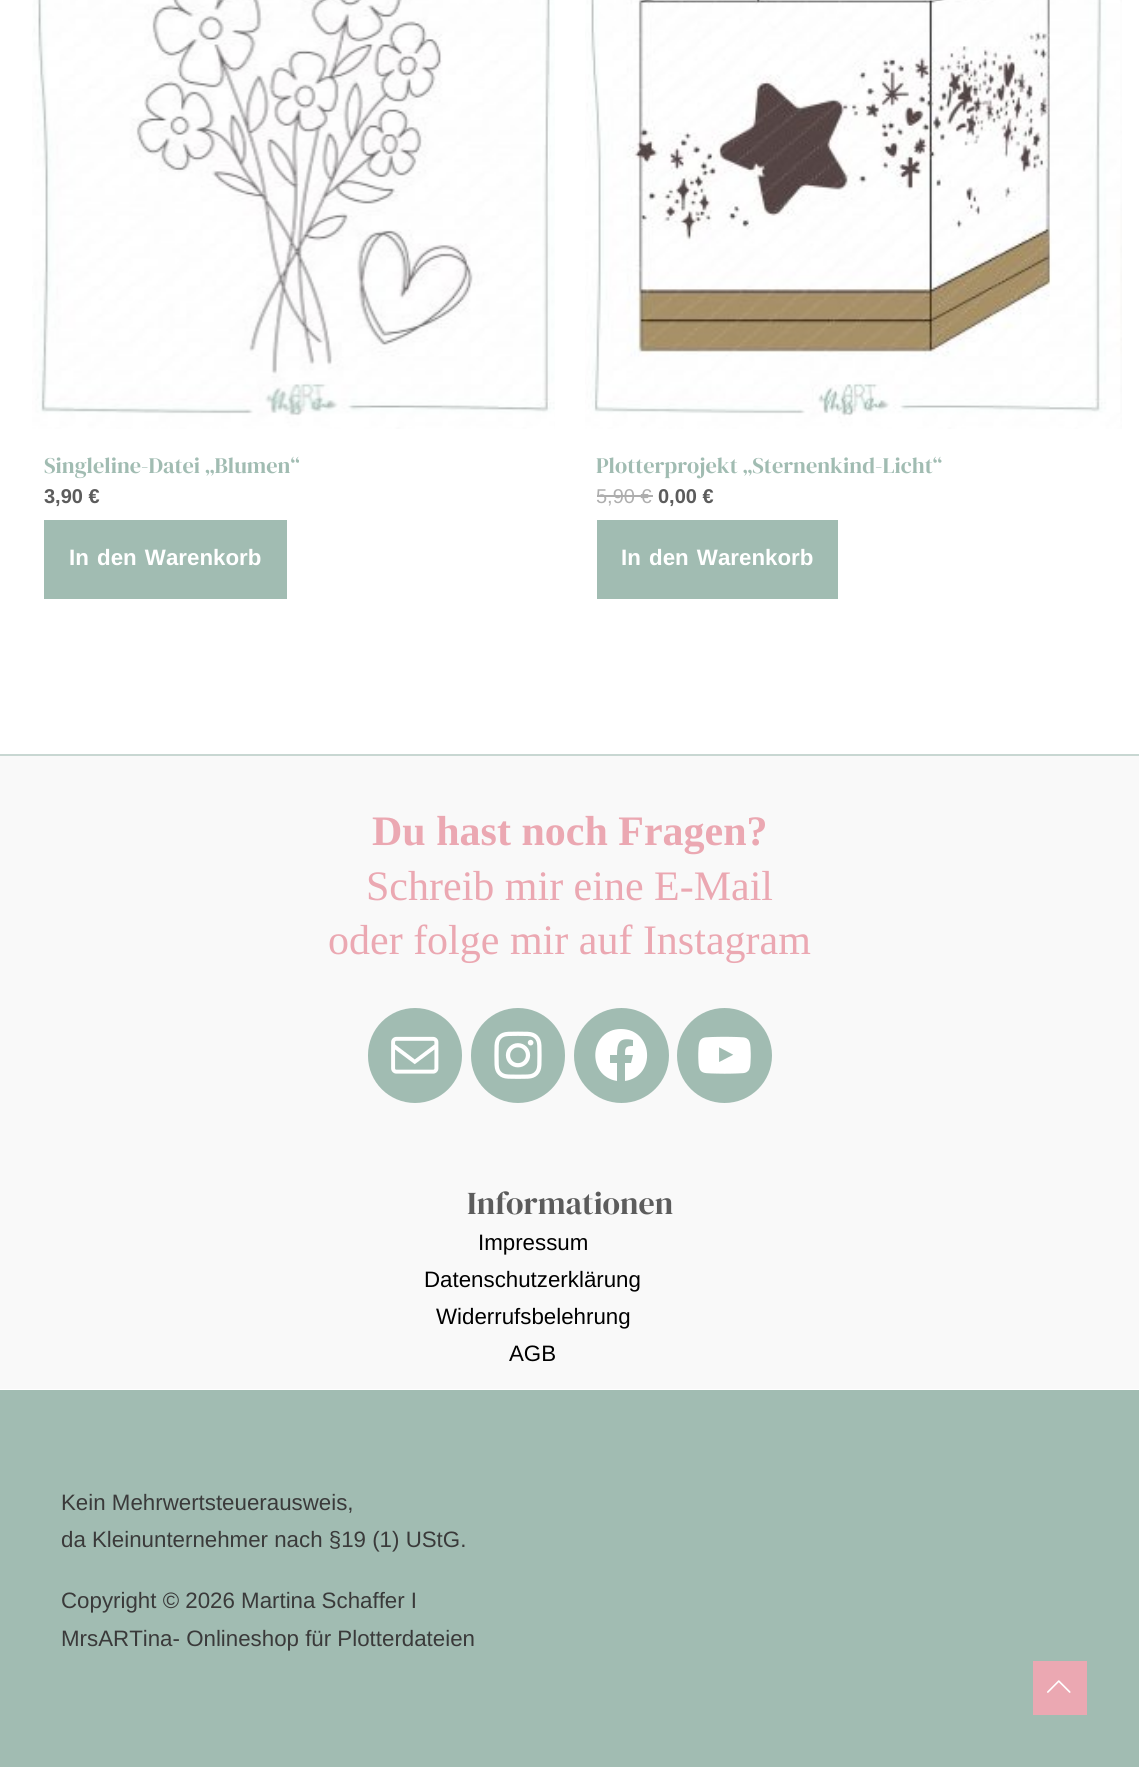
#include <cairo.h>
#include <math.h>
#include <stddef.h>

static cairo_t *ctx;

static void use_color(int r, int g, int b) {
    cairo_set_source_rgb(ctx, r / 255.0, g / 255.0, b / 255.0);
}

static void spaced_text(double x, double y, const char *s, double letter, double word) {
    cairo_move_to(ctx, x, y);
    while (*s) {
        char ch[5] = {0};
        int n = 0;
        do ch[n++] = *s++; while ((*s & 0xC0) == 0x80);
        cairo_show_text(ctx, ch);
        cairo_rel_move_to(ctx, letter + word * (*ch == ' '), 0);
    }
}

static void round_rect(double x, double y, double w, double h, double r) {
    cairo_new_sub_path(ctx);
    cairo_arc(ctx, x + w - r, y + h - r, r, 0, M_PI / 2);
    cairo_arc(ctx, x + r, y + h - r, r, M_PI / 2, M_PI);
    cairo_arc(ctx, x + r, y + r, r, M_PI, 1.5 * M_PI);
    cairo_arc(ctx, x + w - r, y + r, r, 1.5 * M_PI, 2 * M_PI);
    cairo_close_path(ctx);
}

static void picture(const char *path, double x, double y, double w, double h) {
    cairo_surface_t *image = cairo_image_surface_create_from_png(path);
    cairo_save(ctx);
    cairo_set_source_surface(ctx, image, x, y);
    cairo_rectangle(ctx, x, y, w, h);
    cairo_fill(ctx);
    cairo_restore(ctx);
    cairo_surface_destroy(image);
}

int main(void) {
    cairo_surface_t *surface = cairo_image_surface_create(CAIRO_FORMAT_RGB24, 1139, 1767);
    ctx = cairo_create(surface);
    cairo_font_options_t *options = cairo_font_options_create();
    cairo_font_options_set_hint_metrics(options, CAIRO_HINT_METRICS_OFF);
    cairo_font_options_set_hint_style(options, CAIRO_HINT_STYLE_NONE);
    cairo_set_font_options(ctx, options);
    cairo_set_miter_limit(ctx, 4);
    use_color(255, 255, 255);
    cairo_paint(ctx);
    picture("img1.png", 32, 0, 523, 429);
    cairo_select_font_face(ctx, "DM Serif Display", CAIRO_FONT_SLANT_NORMAL, CAIRO_FONT_WEIGHT_NORMAL);
    cairo_set_font_size(ctx, 22.3);
    use_color(161, 188, 178);
    cairo_move_to(ctx, 44, 473);
    cairo_show_text(ctx, "Singleline-Datei „Blumen“");
    cairo_select_font_face(ctx, "Liberation Sans", CAIRO_FONT_SLANT_NORMAL, CAIRO_FONT_WEIGHT_BOLD);
    cairo_set_font_size(ctx, 20);
    use_color(92, 92, 92);
    cairo_move_to(ctx, 44, 503);
    cairo_show_text(ctx, "3,90 €");
    use_color(161, 188, 178);
    cairo_rectangle(ctx, 44, 520, 243, 79);
    cairo_fill(ctx);
    cairo_set_font_size(ctx, 22.3);
    use_color(255, 255, 255);
    spaced_text(69, 565, "In den Warenkorb", 0, 2);
    picture("img2.png", 585, 0, 537, 429);
    cairo_select_font_face(ctx, "DM Serif Display", CAIRO_FONT_SLANT_NORMAL, CAIRO_FONT_WEIGHT_NORMAL);
    use_color(161, 188, 178);
    cairo_move_to(ctx, 596, 473);
    cairo_show_text(ctx, "Plotterprojekt „Sternenkind-Licht“");
    cairo_select_font_face(ctx, "Liberation Sans", CAIRO_FONT_SLANT_NORMAL, CAIRO_FONT_WEIGHT_NORMAL);
    cairo_set_font_size(ctx, 20);
    use_color(174, 174, 174);
    cairo_move_to(ctx, 596, 503);
    cairo_show_text(ctx, "5,90 €");
    cairo_rectangle(ctx, 597, 495, 56, 2);
    cairo_fill(ctx);
    cairo_select_font_face(ctx, "Liberation Sans", CAIRO_FONT_SLANT_NORMAL, CAIRO_FONT_WEIGHT_BOLD);
    use_color(92, 92, 92);
    cairo_move_to(ctx, 658, 503);
    cairo_show_text(ctx, "0,00 €");
    use_color(161, 188, 178);
    cairo_rectangle(ctx, 597, 520, 241, 79);
    cairo_fill(ctx);
    cairo_set_font_size(ctx, 22.3);
    use_color(255, 255, 255);
    spaced_text(621, 565, "In den Warenkorb", 0, 2);
    use_color(249, 249, 249);
    cairo_rectangle(ctx, 0, 756, 1139, 633);
    cairo_fill(ctx);
    use_color(200, 215, 210);
    cairo_rectangle(ctx, 0, 754, 1139, 2);
    cairo_fill(ctx);
    cairo_select_font_face(ctx, "Liberation Serif", CAIRO_FONT_SLANT_NORMAL, CAIRO_FONT_WEIGHT_BOLD);
    cairo_set_font_size(ctx, 42);
    use_color(235, 168, 178);
    cairo_move_to(ctx, 372, 845);
    cairo_show_text(ctx, "Du hast noch Fragen?");
    cairo_select_font_face(ctx, "Liberation Serif", CAIRO_FONT_SLANT_NORMAL, CAIRO_FONT_WEIGHT_NORMAL);
    cairo_move_to(ctx, 366, 900);
    cairo_show_text(ctx, "Schreib mir eine E-Mail");
    cairo_move_to(ctx, 328, 954);
    cairo_show_text(ctx, "oder folge mir auf Instagram");
    use_color(161, 188, 178);
    round_rect(368, 1008, 94, 95, 47);
    cairo_fill(ctx);
    picture("img3.png", 391, 1036, 48, 38);
    round_rect(471, 1008, 94, 95, 47);
    cairo_fill(ctx);
    picture("img4.png", 494, 1031, 48, 48);
    cairo_arc(ctx, 621.5, 1055.5, 47.5, 0, 2 * M_PI);
    cairo_fill(ctx);
    use_color(255, 255, 255);
    cairo_new_path(ctx);
    cairo_move_to(ctx, 621, 1029);
    cairo_curve_to(ctx, 589, 1029, 586, 1076, 617, 1081);
    cairo_line_to(ctx, 617, 1063);
    cairo_line_to(ctx, 610, 1063);
    cairo_line_to(ctx, 610, 1055);
    cairo_line_to(ctx, 617, 1055);
    cairo_curve_to(ctx, 617, 1043, 619, 1037, 633, 1040);
    cairo_line_to(ctx, 633, 1046);
    cairo_curve_to(ctx, 625, 1046, 625, 1048, 625, 1055);
    cairo_line_to(ctx, 633, 1055);
    cairo_line_to(ctx, 631, 1063);
    cairo_line_to(ctx, 625, 1063);
    cairo_line_to(ctx, 625, 1081);
    cairo_curve_to(ctx, 657, 1076, 653, 1029, 621, 1029);
    cairo_close_path(ctx);
    cairo_fill(ctx);
    use_color(161, 188, 178);
    cairo_arc(ctx, 724.5, 1055.5, 47.5, 0, 2 * M_PI);
    cairo_fill(ctx);
    picture("img5.png", 698, 1036, 53, 38);
    cairo_select_font_face(ctx, "DM Serif Display", CAIRO_FONT_SLANT_NORMAL, CAIRO_FONT_WEIGHT_NORMAL);
    cairo_set_font_size(ctx, 32);
    use_color(92, 92, 92);
    cairo_move_to(ctx, 467, 1214);
    cairo_show_text(ctx, "Informationen");
    cairo_select_font_face(ctx, "Liberation Sans", CAIRO_FONT_SLANT_NORMAL, CAIRO_FONT_WEIGHT_NORMAL);
    cairo_set_font_size(ctx, 22.3);
    use_color(0, 0, 0);
    cairo_move_to(ctx, 478, 1250);
    cairo_show_text(ctx, "Impressum");
    cairo_move_to(ctx, 424, 1287);
    cairo_show_text(ctx, "Datenschutzerklärung");
    cairo_move_to(ctx, 436, 1324);
    cairo_show_text(ctx, "Widerrufsbelehrung");
    cairo_move_to(ctx, 509, 1361);
    cairo_show_text(ctx, "AGB");
    use_color(161, 188, 178);
    cairo_rectangle(ctx, 0, 1390, 1139, 377);
    cairo_fill(ctx);
    use_color(58, 58, 58);
    cairo_move_to(ctx, 61, 1510);
    cairo_show_text(ctx, "Kein Mehrwertsteuerausweis,");
    cairo_move_to(ctx, 61, 1547);
    cairo_show_text(ctx, "da Kleinunternehmer nach §19 (1) UStG.");
    cairo_move_to(ctx, 61, 1608);
    cairo_show_text(ctx, "Copyright © 2026 Martina Schaffer I");
    cairo_move_to(ctx, 61, 1646);
    cairo_show_text(ctx, "MrsARTina- Onlineshop für Plotterdateien");
    use_color(235, 168, 178);
    cairo_rectangle(ctx, 1033, 1661, 54, 54);
    cairo_fill(ctx);
    picture("img6.png", 1047, 1680, 24, 13);
    cairo_surface_write_to_png(surface, "result.png");
    cairo_font_options_destroy(options);
    cairo_destroy(ctx);
    cairo_surface_destroy(surface);
    return 0;
}
